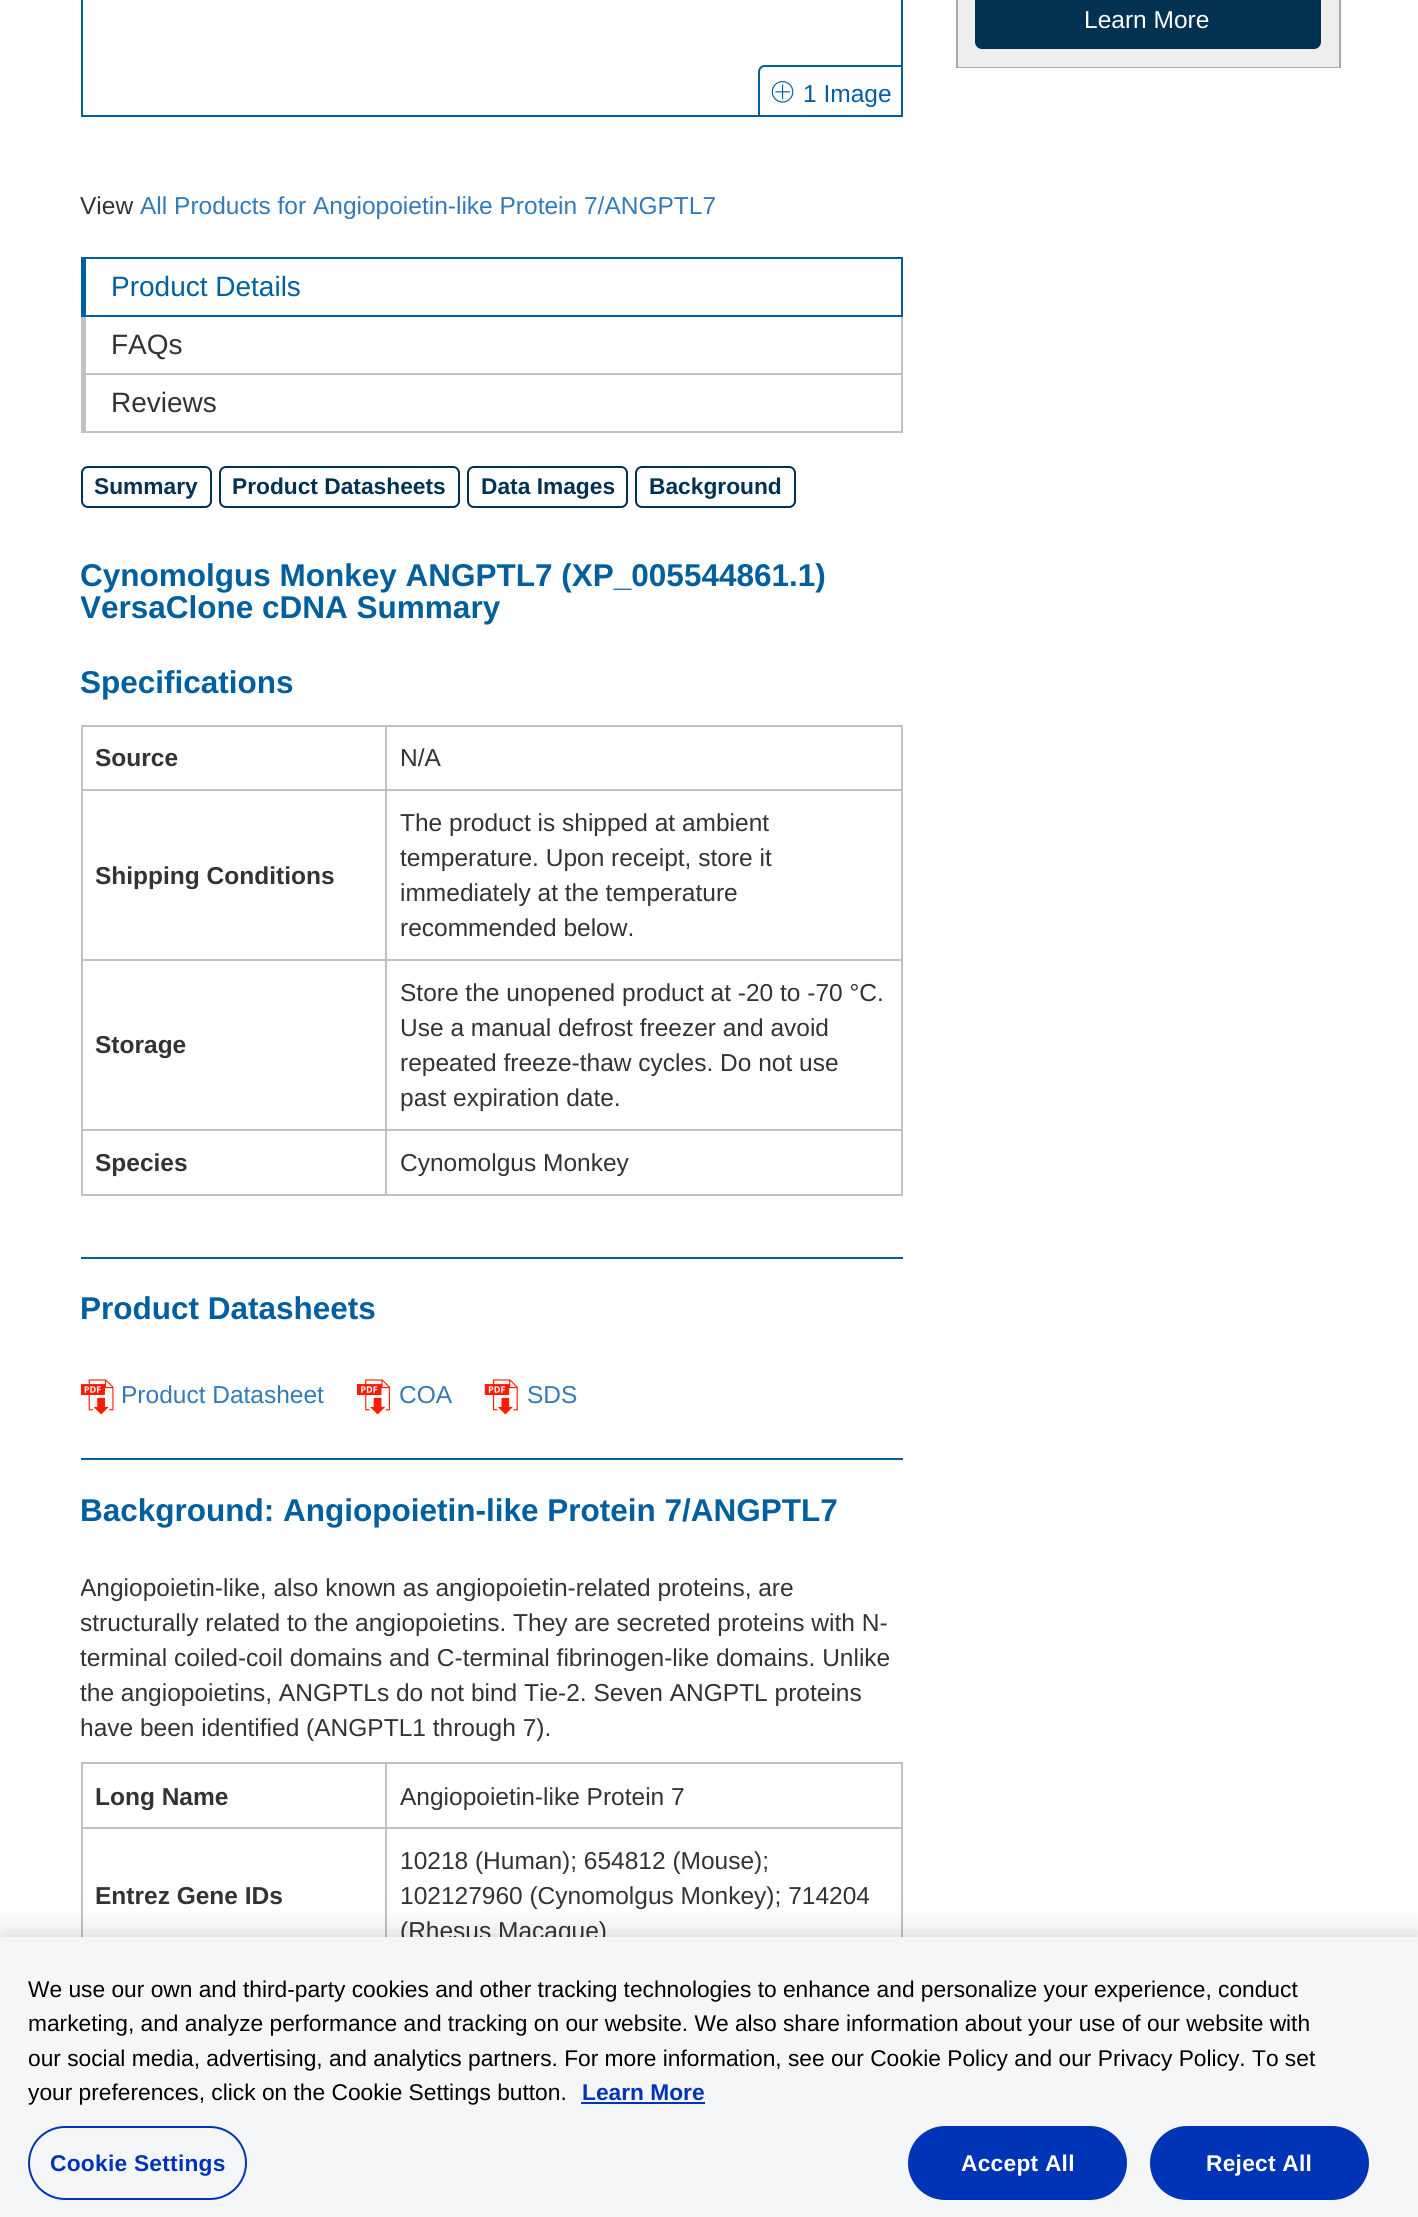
#include <cairo.h>
#include <math.h>
#include <stddef.h>

static cairo_t *ctx;

static void use_color(int r, int g, int b) {
    cairo_set_source_rgb(ctx, r / 255.0, g / 255.0, b / 255.0);
}

static void spaced_text(double x, double y, const char *s, double letter, double word) {
    cairo_move_to(ctx, x, y);
    while (*s) {
        char ch[5] = {0};
        int n = 0;
        do ch[n++] = *s++; while ((*s & 0xC0) == 0x80);
        cairo_show_text(ctx, ch);
        cairo_rel_move_to(ctx, letter + word * (*ch == ' '), 0);
    }
}

static void round_rect(double x, double y, double w, double h, double r) {
    cairo_new_sub_path(ctx);
    cairo_arc(ctx, x + w - r, y + h - r, r, 0, M_PI / 2);
    cairo_arc(ctx, x + r, y + h - r, r, M_PI / 2, M_PI);
    cairo_arc(ctx, x + r, y + r, r, M_PI, 1.5 * M_PI);
    cairo_arc(ctx, x + w - r, y + r, r, 1.5 * M_PI, 2 * M_PI);
    cairo_close_path(ctx);
}

static void shadow(double x, double y, double w, double h, double r, double blur, double alpha) {
    cairo_push_group_with_content(ctx, CAIRO_CONTENT_ALPHA);
    cairo_set_operator(ctx, CAIRO_OPERATOR_SOURCE);
    for (int i = 15; i >= -15 && fmin(w, h) + blur * i / 3 > 0; i -= 2) {
        double e = blur * i / 6;
        cairo_set_source_rgba(ctx, 0, 0, 0, alpha * erfc((i - 1) / 8.5) / 2);
        round_rect(x - e, y - e, w + 2 * e, h + 2 * e, fmax(0, fmin(r + e + blur * .6, fmin(w, h) / 2 + e)));
        cairo_fill(ctx);
    }
    cairo_pattern_t *soft = cairo_pop_group(ctx);
    cairo_mask(ctx, soft);
    cairo_pattern_destroy(soft);
}

static void picture(const char *path, double x, double y, double w, double h) {
    cairo_surface_t *image = cairo_image_surface_create_from_png(path);
    cairo_save(ctx);
    cairo_set_source_surface(ctx, image, x, y);
    cairo_rectangle(ctx, x, y, w, h);
    cairo_fill(ctx);
    cairo_restore(ctx);
    cairo_surface_destroy(image);
}

int main(void) {
    cairo_surface_t *surface = cairo_image_surface_create(CAIRO_FORMAT_RGB24, 1418, 2217);
    ctx = cairo_create(surface);
    cairo_font_options_t *options = cairo_font_options_create();
    cairo_font_options_set_hint_metrics(options, CAIRO_HINT_METRICS_OFF);
    cairo_font_options_set_hint_style(options, CAIRO_HINT_STYLE_NONE);
    cairo_set_font_options(ctx, options);
    cairo_set_miter_limit(ctx, 4);
    use_color(255, 255, 255);
    cairo_paint(ctx);
    use_color(238, 238, 238);
    cairo_rectangle(ctx, 958, 0, 381, 67);
    cairo_fill(ctx);
    use_color(169, 169, 169);
    cairo_rectangle(ctx, 1339, 0, 2, 68);
    cairo_fill(ctx);
    cairo_rectangle(ctx, 956, 67, 385, 1);
    cairo_fill(ctx);
    cairo_rectangle(ctx, 956, 0, 2, 68);
    cairo_fill(ctx);
    use_color(1, 50, 82);
    round_rect(976, -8, 344, 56, 6);
    cairo_fill_preserve(ctx);
    cairo_stroke(ctx);
    cairo_select_font_face(ctx, "Liberation Sans", CAIRO_FONT_SLANT_NORMAL, CAIRO_FONT_WEIGHT_NORMAL);
    cairo_set_font_size(ctx, 24.5);
    use_color(255, 255, 255);
    cairo_move_to(ctx, 1084, 28);
    cairo_show_text(ctx, "Learn More");
    cairo_rectangle(ctx, 82, -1, 820, 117);
    use_color(0, 95, 158);
    cairo_stroke(ctx);
    cairo_new_path(ctx);
    cairo_move_to(ctx, 765, 66);
    cairo_line_to(ctx, 902, 66);
    cairo_line_to(ctx, 902, 116);
    cairo_line_to(ctx, 759, 116);
    cairo_line_to(ctx, 759, 72);
    cairo_curve_to(ctx, 759, 68.5, 761.5, 66, 765, 66);
    cairo_close_path(ctx);
    cairo_stroke(ctx);
    picture("img1.png", 771, 81, 23, 22);
    cairo_move_to(ctx, 803, 102);
    cairo_show_text(ctx, "1 Image");
    use_color(51, 51, 51);
    cairo_move_to(ctx, 80, 214);
    cairo_show_text(ctx, "View");
    use_color(51, 122, 183);
    cairo_move_to(ctx, 140, 214);
    cairo_show_text(ctx, "All Products for Angiopoietin-like Protein 7/ANGPTL7");
    use_color(0, 95, 158);
    cairo_rectangle(ctx, 81, 257, 822, 2);
    cairo_fill(ctx);
    use_color(193, 193, 193);
    cairo_rectangle(ctx, 901, 315, 2, 60);
    cairo_fill(ctx);
    use_color(0, 95, 158);
    cairo_rectangle(ctx, 901, 257, 2, 60);
    cairo_fill(ctx);
    use_color(193, 193, 193);
    cairo_rectangle(ctx, 81, 373, 822, 2);
    cairo_fill(ctx);
    cairo_rectangle(ctx, 81, 315, 5, 60);
    cairo_fill(ctx);
    use_color(0, 95, 158);
    cairo_rectangle(ctx, 81, 315, 822, 2);
    cairo_fill(ctx);
    cairo_rectangle(ctx, 81, 257, 5, 60);
    cairo_fill(ctx);
    cairo_set_font_size(ctx, 28);
    cairo_move_to(ctx, 111, 296);
    cairo_show_text(ctx, "Product Details");
    use_color(51, 51, 51);
    cairo_move_to(ctx, 111, 354);
    cairo_show_text(ctx, "FAQs");
    use_color(193, 193, 193);
    cairo_rectangle(ctx, 901, 373, 2, 59);
    cairo_fill(ctx);
    cairo_rectangle(ctx, 81, 431, 822, 2);
    cairo_fill(ctx);
    cairo_rectangle(ctx, 81, 373, 5, 59);
    cairo_fill(ctx);
    use_color(51, 51, 51);
    cairo_move_to(ctx, 111, 412);
    cairo_show_text(ctx, "Reviews");
    round_rect(82, 467, 129, 40, 6);
    use_color(1, 50, 82);
    cairo_stroke(ctx);
    cairo_select_font_face(ctx, "Liberation Sans", CAIRO_FONT_SLANT_NORMAL, CAIRO_FONT_WEIGHT_BOLD);
    cairo_set_font_size(ctx, 22.75);
    cairo_move_to(ctx, 94, 494);
    cairo_show_text(ctx, "Summary");
    round_rect(220, 467, 239, 40, 6);
    cairo_stroke(ctx);
    cairo_move_to(ctx, 232, 494);
    cairo_show_text(ctx, "Product Datasheets");
    round_rect(468, 467, 159, 40, 6);
    cairo_stroke(ctx);
    cairo_move_to(ctx, 481, 494);
    cairo_show_text(ctx, "Data Images");
    round_rect(636, 467, 159, 40, 6);
    cairo_stroke(ctx);
    cairo_move_to(ctx, 649, 494);
    cairo_show_text(ctx, "Background");
    use_color(0, 95, 158);
    cairo_rectangle(ctx, 81, 1257, 822, 2);
    cairo_fill(ctx);
    cairo_set_font_size(ctx, 31.5);
    cairo_move_to(ctx, 80, 586);
    cairo_show_text(ctx, "Cynomolgus Monkey ANGPTL7 (XP_005544861.1)");
    cairo_save(ctx);
    cairo_rectangle(ctx, 81, 560, 822, 697);
    cairo_clip(ctx);
    cairo_move_to(ctx, 80, 618);
    cairo_show_text(ctx, "VersaClone cDNA Summary");
    cairo_restore(ctx);
    cairo_move_to(ctx, 80, 693);
    cairo_show_text(ctx, "Specifications");
    use_color(193, 193, 193);
    cairo_rectangle(ctx, 81, 725, 822, 2);
    cairo_fill(ctx);
    cairo_rectangle(ctx, 385, 726, 2, 469);
    cairo_fill(ctx);
    cairo_rectangle(ctx, 81, 789, 306, 2);
    cairo_fill(ctx);
    cairo_rectangle(ctx, 81, 726, 2, 65);
    cairo_fill(ctx);
    cairo_set_font_size(ctx, 24.5);
    use_color(51, 51, 51);
    cairo_move_to(ctx, 95, 766);
    cairo_show_text(ctx, "Source");
    use_color(193, 193, 193);
    cairo_rectangle(ctx, 901, 726, 2, 469);
    cairo_fill(ctx);
    cairo_rectangle(ctx, 387, 789, 516, 2);
    cairo_fill(ctx);
    cairo_select_font_face(ctx, "Liberation Sans", CAIRO_FONT_SLANT_NORMAL, CAIRO_FONT_WEIGHT_NORMAL);
    use_color(51, 51, 51);
    cairo_move_to(ctx, 400, 766);
    cairo_show_text(ctx, "N/A");
    use_color(193, 193, 193);
    cairo_rectangle(ctx, 81, 959, 822, 2);
    cairo_fill(ctx);
    cairo_rectangle(ctx, 81, 791, 2, 170);
    cairo_fill(ctx);
    cairo_select_font_face(ctx, "Liberation Sans", CAIRO_FONT_SLANT_NORMAL, CAIRO_FONT_WEIGHT_BOLD);
    use_color(51, 51, 51);
    cairo_move_to(ctx, 95, 884);
    cairo_show_text(ctx, "Shipping Conditions");
    cairo_select_font_face(ctx, "Liberation Sans", CAIRO_FONT_SLANT_NORMAL, CAIRO_FONT_WEIGHT_NORMAL);
    cairo_move_to(ctx, 400, 831);
    cairo_show_text(ctx, "The product is shipped at ambient");
    cairo_move_to(ctx, 400, 866);
    cairo_show_text(ctx, "temperature. Upon receipt, store it");
    cairo_move_to(ctx, 400, 901);
    cairo_show_text(ctx, "immediately at the temperature");
    cairo_move_to(ctx, 400, 936);
    cairo_show_text(ctx, "recommended below.");
    use_color(193, 193, 193);
    cairo_rectangle(ctx, 81, 1129, 822, 2);
    cairo_fill(ctx);
    cairo_rectangle(ctx, 81, 961, 2, 170);
    cairo_fill(ctx);
    cairo_select_font_face(ctx, "Liberation Sans", CAIRO_FONT_SLANT_NORMAL, CAIRO_FONT_WEIGHT_BOLD);
    use_color(51, 51, 51);
    cairo_move_to(ctx, 95, 1053);
    cairo_show_text(ctx, "Storage");
    cairo_select_font_face(ctx, "Liberation Sans", CAIRO_FONT_SLANT_NORMAL, CAIRO_FONT_WEIGHT_NORMAL);
    cairo_move_to(ctx, 400, 1001);
    cairo_show_text(ctx, "Store the unopened product at -20 to -70 °C.");
    cairo_move_to(ctx, 400, 1036);
    cairo_show_text(ctx, "Use a manual defrost freezer and avoid");
    cairo_move_to(ctx, 400, 1071);
    cairo_show_text(ctx, "repeated freeze-thaw cycles. Do not use");
    cairo_move_to(ctx, 400, 1106);
    cairo_show_text(ctx, "past expiration date.");
    use_color(193, 193, 193);
    cairo_rectangle(ctx, 81, 1194, 822, 2);
    cairo_fill(ctx);
    cairo_rectangle(ctx, 81, 1131, 2, 64);
    cairo_fill(ctx);
    cairo_select_font_face(ctx, "Liberation Sans", CAIRO_FONT_SLANT_NORMAL, CAIRO_FONT_WEIGHT_BOLD);
    use_color(51, 51, 51);
    cairo_move_to(ctx, 95, 1171);
    cairo_show_text(ctx, "Species");
    cairo_select_font_face(ctx, "Liberation Sans", CAIRO_FONT_SLANT_NORMAL, CAIRO_FONT_WEIGHT_NORMAL);
    cairo_move_to(ctx, 400, 1171);
    cairo_show_text(ctx, "Cynomolgus Monkey");
    use_color(0, 95, 158);
    cairo_rectangle(ctx, 81, 1458, 822, 2);
    cairo_fill(ctx);
    cairo_select_font_face(ctx, "Liberation Sans", CAIRO_FONT_SLANT_NORMAL, CAIRO_FONT_WEIGHT_BOLD);
    cairo_set_font_size(ctx, 31.5);
    cairo_move_to(ctx, 80, 1319);
    cairo_show_text(ctx, "Product Datasheets");
    picture("img2.png", 81, 1379, 33, 36);
    cairo_select_font_face(ctx, "Liberation Sans", CAIRO_FONT_SLANT_NORMAL, CAIRO_FONT_WEIGHT_NORMAL);
    cairo_set_font_size(ctx, 24.5);
    use_color(51, 122, 183);
    cairo_move_to(ctx, 121, 1403);
    cairo_show_text(ctx, "Product Datasheet");
    picture("img3.png", 357, 1379, 33, 36);
    cairo_move_to(ctx, 399, 1403);
    cairo_show_text(ctx, "COA");
    picture("img4.png", 484, 1379, 34, 36);
    cairo_move_to(ctx, 527, 1403);
    cairo_show_text(ctx, "SDS");
    cairo_select_font_face(ctx, "Liberation Sans", CAIRO_FONT_SLANT_NORMAL, CAIRO_FONT_WEIGHT_BOLD);
    cairo_set_font_size(ctx, 31.5);
    use_color(0, 95, 158);
    cairo_move_to(ctx, 80, 1521);
    cairo_show_text(ctx, "Background: Angiopoietin-like Protein 7/ANGPTL7");
    cairo_save(ctx);
    cairo_rectangle(ctx, 81, 1495, 822, 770);
    cairo_clip(ctx);
    cairo_select_font_face(ctx, "Liberation Sans", CAIRO_FONT_SLANT_NORMAL, CAIRO_FONT_WEIGHT_NORMAL);
    cairo_set_font_size(ctx, 24.5);
    use_color(51, 51, 51);
    cairo_move_to(ctx, 80, 1596);
    cairo_show_text(ctx, "Angiopoietin-like, also known as angiopoietin-related proteins, are");
    cairo_move_to(ctx, 80, 1631);
    cairo_show_text(ctx, "structurally related to the angiopoietins. They are secreted proteins with N-");
    cairo_restore(ctx);
    cairo_select_font_face(ctx, "Liberation Sans", CAIRO_FONT_SLANT_NORMAL, CAIRO_FONT_WEIGHT_NORMAL);
    cairo_set_font_size(ctx, 24.5);
    use_color(51, 51, 51);
    cairo_move_to(ctx, 80, 1666);
    cairo_show_text(ctx, "terminal coiled-coil domains and C-terminal fibrinogen-like domains. Unlike");
    cairo_move_to(ctx, 80, 1701);
    cairo_show_text(ctx, "the angiopoietins, ANGPTLs do not bind Tie-2. Seven ANGPTL proteins");
    cairo_move_to(ctx, 80, 1736);
    cairo_show_text(ctx, "have been identified (ANGPTL1 through 7).");
    use_color(193, 193, 193);
    cairo_rectangle(ctx, 81, 1762, 822, 2);
    cairo_fill(ctx);
    cairo_rectangle(ctx, 385, 1764, 2, 173);
    cairo_fill(ctx);
    cairo_rectangle(ctx, 81, 1827, 306, 2);
    cairo_fill(ctx);
    cairo_rectangle(ctx, 81, 1764, 2, 173);
    cairo_fill(ctx);
    cairo_select_font_face(ctx, "Liberation Sans", CAIRO_FONT_SLANT_NORMAL, CAIRO_FONT_WEIGHT_BOLD);
    use_color(51, 51, 51);
    cairo_move_to(ctx, 95, 1805);
    cairo_show_text(ctx, "Long Name");
    use_color(193, 193, 193);
    cairo_rectangle(ctx, 901, 1764, 2, 173);
    cairo_fill(ctx);
    cairo_rectangle(ctx, 387, 1827, 516, 2);
    cairo_fill(ctx);
    cairo_select_font_face(ctx, "Liberation Sans", CAIRO_FONT_SLANT_NORMAL, CAIRO_FONT_WEIGHT_NORMAL);
    use_color(51, 51, 51);
    cairo_move_to(ctx, 400, 1805);
    cairo_show_text(ctx, "Angiopoietin-like Protein 7");
    cairo_select_font_face(ctx, "Liberation Sans", CAIRO_FONT_SLANT_NORMAL, CAIRO_FONT_WEIGHT_BOLD);
    cairo_move_to(ctx, 95, 1904);
    cairo_show_text(ctx, "Entrez Gene IDs");
    cairo_select_font_face(ctx, "Liberation Sans", CAIRO_FONT_SLANT_NORMAL, CAIRO_FONT_WEIGHT_NORMAL);
    cairo_move_to(ctx, 400, 1869);
    cairo_show_text(ctx, "10218 (Human); 654812 (Mouse);");
    cairo_move_to(ctx, 400, 1904);
    cairo_show_text(ctx, "102127960 (Cynomolgus Monkey); 714204");
    cairo_move_to(ctx, 400, 1939);
    cairo_show_text(ctx, "(Rhesus Macaque)");
    use_color(0, 0, 0);
    shadow(0, 1937, 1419, 280, 0, 16, 0.2);
    use_color(245, 246, 248);
    cairo_rectangle(ctx, 0, 1937, 1418, 280);
    cairo_fill(ctx);
    cairo_set_font_size(ctx, 22.75);
    use_color(0, 0, 0);
    cairo_move_to(ctx, 28, 1997);
    cairo_show_text(ctx, "We use our own and third-party cookies and other tracking technologies to enhance and personalize your experience, conduct");
    cairo_move_to(ctx, 28, 2031);
    cairo_show_text(ctx, "marketing, and analyze performance and tracking on our website. We also share");
    cairo_move_to(ctx, 846, 2031);
    cairo_show_text(ctx, "information about your use of our website with");
    cairo_move_to(ctx, 28, 2066);
    cairo_show_text(ctx, "our social media, advertising, and analytics partners. For more information, see our Cookie Policy and our Privacy Policy. To set");
    cairo_move_to(ctx, 28, 2100);
    cairo_show_text(ctx, "your preferences, click on the Cookie Settings button.");
    cairo_select_font_face(ctx, "Liberation Sans", CAIRO_FONT_SLANT_NORMAL, CAIRO_FONT_WEIGHT_BOLD);
    use_color(0, 52, 183);
    cairo_move_to(ctx, 582, 2100);
    cairo_show_text(ctx, "Learn More");
    cairo_rectangle(ctx, 581, 2102, 124, 2);
    cairo_fill(ctx);
    round_rect(29, 2127, 217, 72, 36);
    cairo_stroke(ctx);
    spaced_text(50, 2171, "Cookie Settings", 0.25, 0);
    round_rect(909, 2127, 217, 72, 36);
    cairo_fill_preserve(ctx);
    cairo_stroke(ctx);
    use_color(255, 255, 255);
    spaced_text(961, 2171, "Accept All", 0.25, 0);
    use_color(0, 52, 183);
    round_rect(1151, 2127, 217, 72, 36);
    cairo_fill_preserve(ctx);
    cairo_stroke(ctx);
    use_color(255, 255, 255);
    spaced_text(1206, 2171, "Reject All", 0.25, 0);
    cairo_surface_write_to_png(surface, "result.png");
    cairo_font_options_destroy(options);
    cairo_destroy(ctx);
    cairo_surface_destroy(surface);
    return 0;
}
